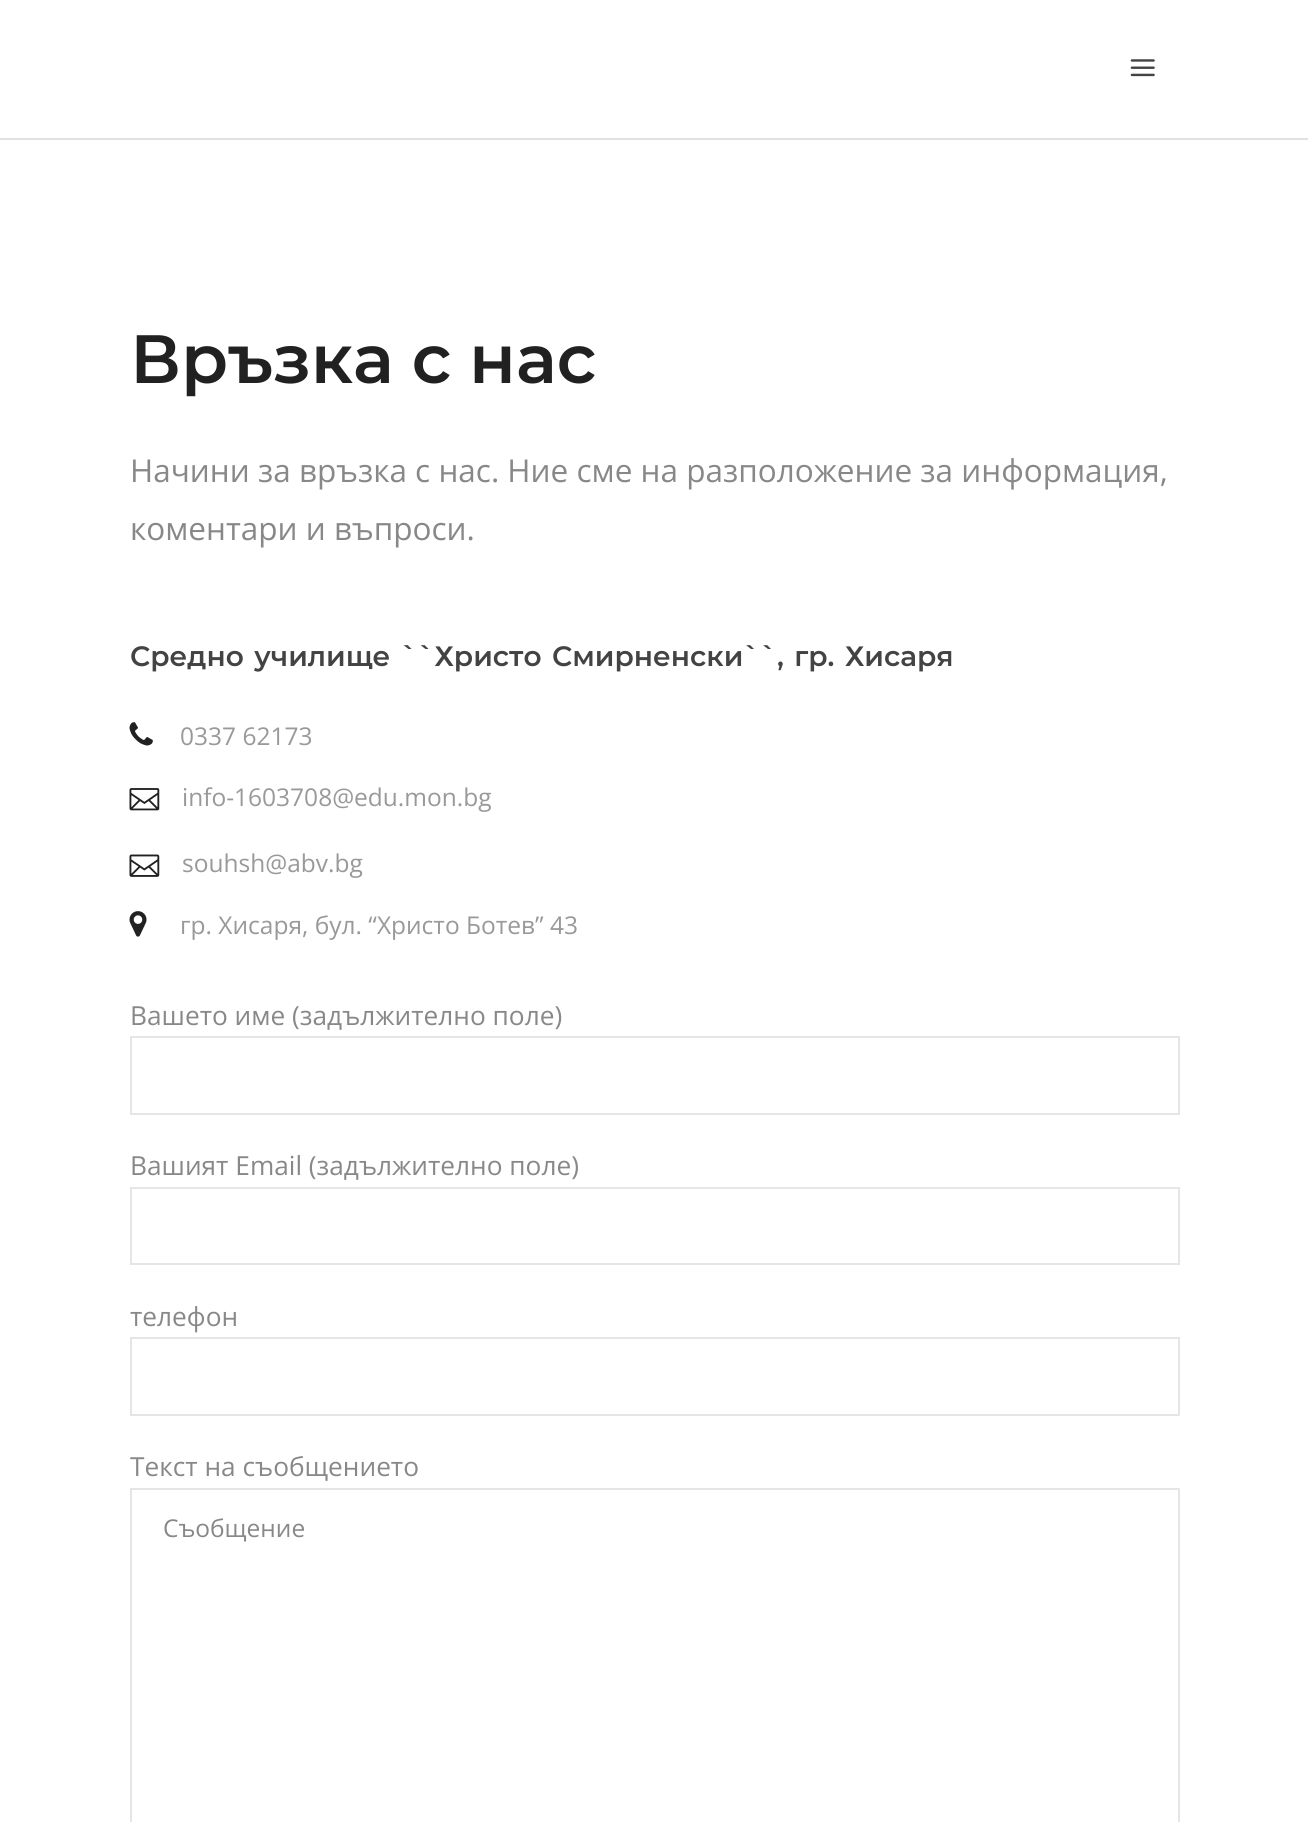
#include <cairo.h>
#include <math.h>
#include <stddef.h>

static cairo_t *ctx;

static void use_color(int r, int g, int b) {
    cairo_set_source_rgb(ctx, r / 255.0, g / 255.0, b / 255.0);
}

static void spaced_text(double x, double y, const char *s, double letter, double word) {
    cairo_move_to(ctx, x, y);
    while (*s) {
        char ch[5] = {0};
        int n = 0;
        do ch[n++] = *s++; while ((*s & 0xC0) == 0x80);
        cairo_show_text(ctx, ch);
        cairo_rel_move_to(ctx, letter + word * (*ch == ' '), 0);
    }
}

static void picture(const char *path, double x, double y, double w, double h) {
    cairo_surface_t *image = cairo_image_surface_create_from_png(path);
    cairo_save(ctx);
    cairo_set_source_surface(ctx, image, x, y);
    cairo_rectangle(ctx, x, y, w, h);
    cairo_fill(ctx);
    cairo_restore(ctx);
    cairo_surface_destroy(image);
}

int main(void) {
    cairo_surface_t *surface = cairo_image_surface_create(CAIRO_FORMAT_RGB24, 1308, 1822);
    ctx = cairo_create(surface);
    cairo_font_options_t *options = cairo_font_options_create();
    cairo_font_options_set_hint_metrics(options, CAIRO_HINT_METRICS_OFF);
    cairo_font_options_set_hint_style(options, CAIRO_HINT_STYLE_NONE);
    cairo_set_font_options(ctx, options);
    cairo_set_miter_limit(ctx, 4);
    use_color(255, 255, 255);
    cairo_paint(ctx);
    use_color(225, 225, 225);
    cairo_rectangle(ctx, 0, 138, 1308, 2);
    cairo_fill(ctx);
    picture("img1.png", 1130, 59, 25, 18);
    cairo_select_font_face(ctx, "Montserrat SemiBold", CAIRO_FONT_SLANT_NORMAL, CAIRO_FONT_WEIGHT_NORMAL);
    cairo_set_font_size(ctx, 68.25);
    use_color(33, 33, 33);
    spaced_text(130, 383, "Връзка с нас", 0, -1);
    cairo_select_font_face(ctx, "Open Sans", CAIRO_FONT_SLANT_NORMAL, CAIRO_FONT_WEIGHT_NORMAL);
    cairo_set_font_size(ctx, 31.5);
    use_color(136, 136, 136);
    cairo_move_to(ctx, 130, 482);
    cairo_show_text(ctx, "Начини за връзка с нас. Ние сме на разположение за информация,");
    cairo_move_to(ctx, 130, 540);
    cairo_show_text(ctx, "коментари и въпроси.");
    cairo_select_font_face(ctx, "Montserrat SemiBold", CAIRO_FONT_SLANT_NORMAL, CAIRO_FONT_WEIGHT_NORMAL);
    cairo_set_font_size(ctx, 28);
    use_color(67, 67, 67);
    spaced_text(130, 666, "Средно училище ``Христо Смирненски``, гр. Хисаря", 0, 2.75);
    picture("img2.png", 129, 722, 24, 24);
    cairo_select_font_face(ctx, "Open Sans", CAIRO_FONT_SLANT_NORMAL, CAIRO_FONT_WEIGHT_NORMAL);
    cairo_set_font_size(ctx, 24.5);
    use_color(153, 153, 153);
    cairo_move_to(ctx, 180, 745);
    cairo_show_text(ctx, "0337 62173");
    picture("img3.png", 129, 788, 31, 23);
    cairo_move_to(ctx, 182, 806);
    cairo_show_text(ctx, "info-1603708@edu.mon.bg");
    picture("img4.png", 129, 854, 31, 23);
    cairo_move_to(ctx, 182, 872);
    cairo_show_text(ctx, "souhsh@abv.bg");
    picture("img5.png", 129, 911, 18, 26);
    cairo_move_to(ctx, 180, 934);
    cairo_show_text(ctx, "гр. Хисаря, бул. “Христо Ботев” 43");
    cairo_set_font_size(ctx, 26.25);
    use_color(136, 136, 136);
    cairo_move_to(ctx, 130, 1025);
    cairo_show_text(ctx, "Вашето име (задължително поле)");
    cairo_rectangle(ctx, 131, 1037, 1048, 77);
    use_color(229, 229, 229);
    cairo_stroke(ctx);
    use_color(136, 136, 136);
    cairo_move_to(ctx, 130, 1175);
    cairo_show_text(ctx, "Вашият Email (задължително поле)");
    cairo_rectangle(ctx, 131, 1188, 1048, 76);
    use_color(229, 229, 229);
    cairo_stroke(ctx);
    use_color(136, 136, 136);
    cairo_move_to(ctx, 130, 1326);
    cairo_show_text(ctx, "телефон");
    cairo_rectangle(ctx, 131, 1338, 1048, 77);
    use_color(229, 229, 229);
    cairo_stroke(ctx);
    use_color(136, 136, 136);
    cairo_move_to(ctx, 130, 1476);
    cairo_show_text(ctx, "Текст на съобщението");
    cairo_rectangle(ctx, 131, 1489, 1048, 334);
    use_color(229, 229, 229);
    cairo_stroke(ctx);
    cairo_set_font_size(ctx, 24.5);
    use_color(136, 136, 136);
    cairo_move_to(ctx, 163, 1537);
    cairo_show_text(ctx, "Съобщение");
    cairo_surface_write_to_png(surface, "result.png");
    cairo_font_options_destroy(options);
    cairo_destroy(ctx);
    cairo_surface_destroy(surface);
    return 0;
}
